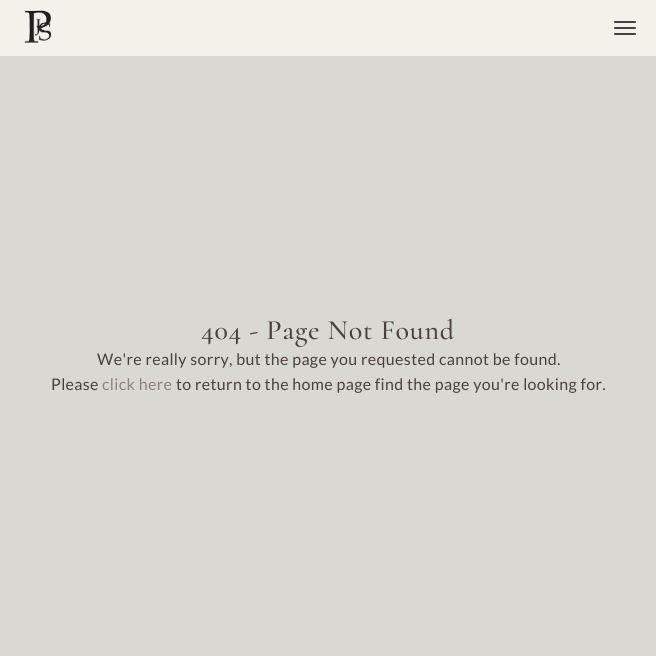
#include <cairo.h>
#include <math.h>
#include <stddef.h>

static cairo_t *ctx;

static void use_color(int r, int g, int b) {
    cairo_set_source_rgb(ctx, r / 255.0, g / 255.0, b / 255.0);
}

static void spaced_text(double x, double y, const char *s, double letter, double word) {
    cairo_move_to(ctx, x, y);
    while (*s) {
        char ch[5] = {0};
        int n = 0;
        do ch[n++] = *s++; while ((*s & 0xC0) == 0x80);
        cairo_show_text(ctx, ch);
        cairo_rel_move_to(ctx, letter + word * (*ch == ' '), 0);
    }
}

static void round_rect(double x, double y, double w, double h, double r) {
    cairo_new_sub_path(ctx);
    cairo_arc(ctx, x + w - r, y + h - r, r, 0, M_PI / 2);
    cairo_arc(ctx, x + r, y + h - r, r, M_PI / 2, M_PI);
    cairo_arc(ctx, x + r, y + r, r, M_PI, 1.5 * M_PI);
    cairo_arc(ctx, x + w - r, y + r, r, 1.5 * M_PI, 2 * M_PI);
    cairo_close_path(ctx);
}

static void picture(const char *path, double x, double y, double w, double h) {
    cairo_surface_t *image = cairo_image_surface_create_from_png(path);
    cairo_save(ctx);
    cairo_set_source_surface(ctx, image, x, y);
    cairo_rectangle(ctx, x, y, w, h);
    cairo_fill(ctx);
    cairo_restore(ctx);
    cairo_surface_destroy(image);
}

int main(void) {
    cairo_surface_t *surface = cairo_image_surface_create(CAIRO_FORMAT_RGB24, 656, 656);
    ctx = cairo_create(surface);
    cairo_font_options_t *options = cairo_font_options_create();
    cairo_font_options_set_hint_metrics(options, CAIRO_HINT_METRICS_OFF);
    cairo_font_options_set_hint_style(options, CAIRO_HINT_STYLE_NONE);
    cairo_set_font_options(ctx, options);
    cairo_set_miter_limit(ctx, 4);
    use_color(242, 242, 235);
    cairo_paint(ctx);
    picture("img1.png", 24, 10, 28, 33);
    use_color(73, 65, 62);
    round_rect(614, 21, 22, 2, 1);
    cairo_fill(ctx);
    round_rect(614, 27, 22, 2, 1);
    cairo_fill(ctx);
    round_rect(614, 33, 22, 2, 1);
    cairo_fill(ctx);
    use_color(217, 216, 210);
    cairo_rectangle(ctx, 0, 56, 656, 600);
    cairo_fill(ctx);
    cairo_select_font_face(ctx, "Cormorant Medium", CAIRO_FONT_SLANT_NORMAL, CAIRO_FONT_WEIGHT_NORMAL);
    cairo_set_font_size(ctx, 28);
    use_color(73, 65, 62);
    spaced_text(201, 339, "404 - Page Not Found", 0.75, 0);
    cairo_select_font_face(ctx, "Lato", CAIRO_FONT_SLANT_NORMAL, CAIRO_FONT_WEIGHT_NORMAL);
    cairo_set_font_size(ctx, 16);
    spaced_text(97, 365, "We're really sorry, but the page you requested cannot be found.", 0.35, 0);
    spaced_text(51, 390, "Please", 0.35, 0);
    use_color(140, 132, 125);
    spaced_text(102, 390, "click here", 0.35, 0);
    use_color(73, 65, 62);
    spaced_text(176, 390, "to return to the home page find the page you're looking for.", 0.35, 0);
    cairo_surface_write_to_png(surface, "result.png");
    cairo_font_options_destroy(options);
    cairo_destroy(ctx);
    cairo_surface_destroy(surface);
    return 0;
}
